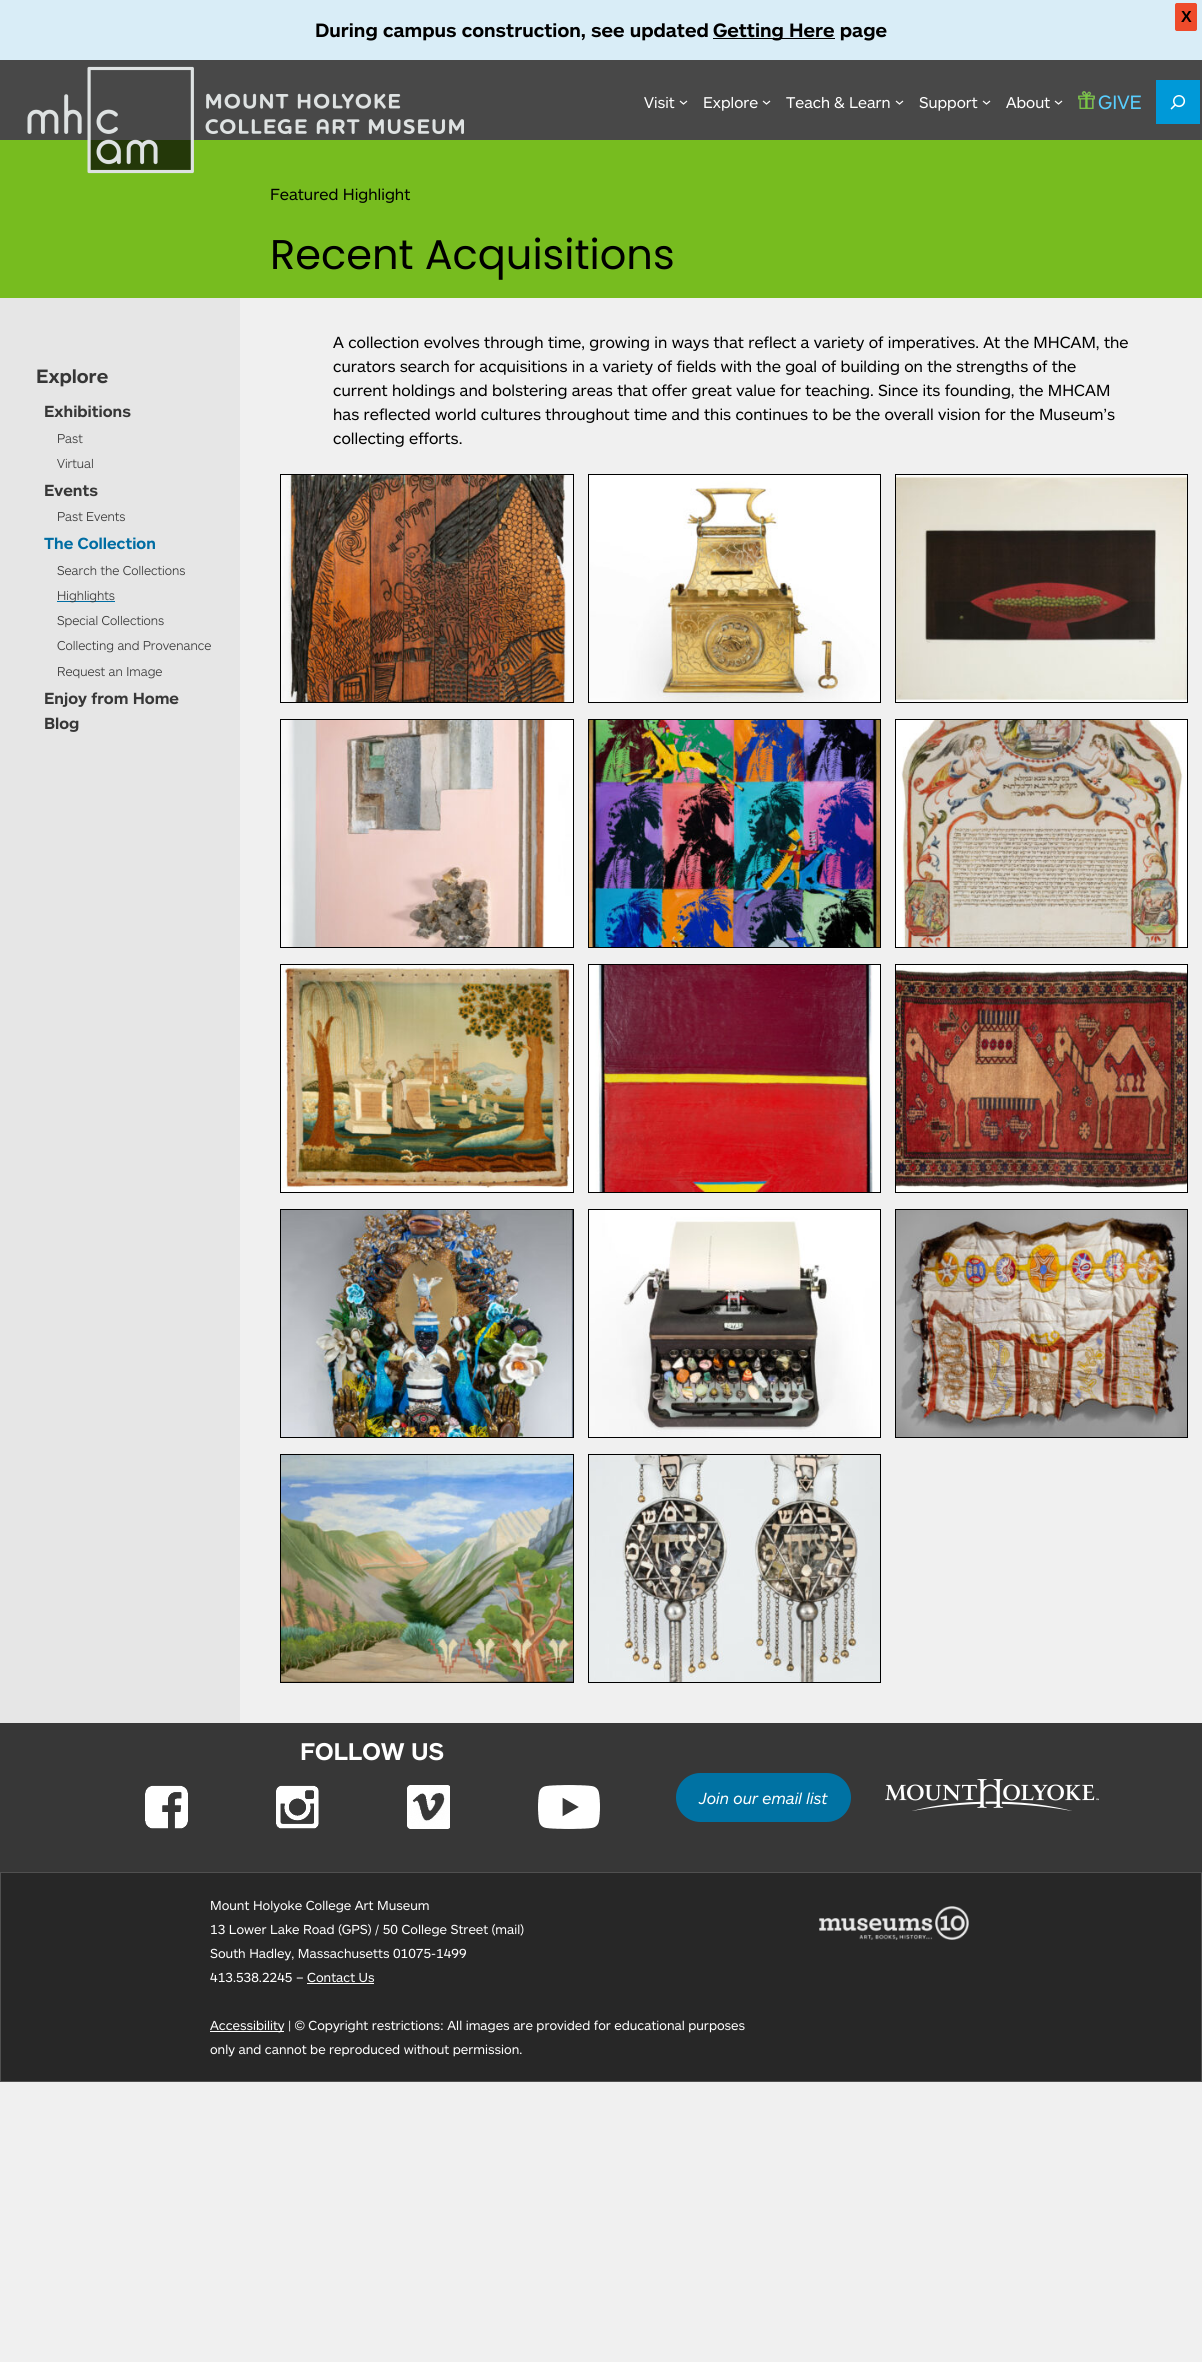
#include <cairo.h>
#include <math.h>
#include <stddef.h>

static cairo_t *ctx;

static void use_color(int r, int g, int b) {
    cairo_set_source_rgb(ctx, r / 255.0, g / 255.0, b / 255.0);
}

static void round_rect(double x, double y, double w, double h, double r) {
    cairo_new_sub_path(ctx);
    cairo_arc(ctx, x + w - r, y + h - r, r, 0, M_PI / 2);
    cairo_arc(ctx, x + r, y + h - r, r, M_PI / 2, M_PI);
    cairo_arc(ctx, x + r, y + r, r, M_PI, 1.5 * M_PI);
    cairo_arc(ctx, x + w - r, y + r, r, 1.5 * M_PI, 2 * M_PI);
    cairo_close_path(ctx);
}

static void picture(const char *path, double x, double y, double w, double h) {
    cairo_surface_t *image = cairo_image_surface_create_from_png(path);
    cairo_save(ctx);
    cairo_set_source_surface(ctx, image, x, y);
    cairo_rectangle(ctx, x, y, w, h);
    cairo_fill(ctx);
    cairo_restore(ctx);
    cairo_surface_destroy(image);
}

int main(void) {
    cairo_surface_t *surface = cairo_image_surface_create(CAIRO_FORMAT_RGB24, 1202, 2362);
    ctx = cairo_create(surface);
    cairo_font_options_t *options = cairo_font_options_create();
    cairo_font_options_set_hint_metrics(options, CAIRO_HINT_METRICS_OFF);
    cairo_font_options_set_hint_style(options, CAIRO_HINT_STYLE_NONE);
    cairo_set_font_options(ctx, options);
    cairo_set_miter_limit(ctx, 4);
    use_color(240, 240, 240);
    cairo_paint(ctx);
    use_color(217, 237, 247);
    cairo_rectangle(ctx, 0, 0, 1202, 60);
    cairo_fill(ctx);
    use_color(238, 75, 43);
    round_rect(1175.5, 3.5, 21, 27, 1.5);
    cairo_fill_preserve(ctx);
    cairo_set_line_width(ctx, 1);
    cairo_stroke(ctx);
    cairo_select_font_face(ctx, "Liberation Sans", CAIRO_FONT_SLANT_NORMAL, CAIRO_FONT_WEIGHT_BOLD);
    cairo_set_font_size(ctx, 16);
    use_color(0, 0, 0);
    cairo_move_to(ctx, 1181, 22);
    cairo_show_text(ctx, "X");
    cairo_select_font_face(ctx, "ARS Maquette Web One", CAIRO_FONT_SLANT_NORMAL, CAIRO_FONT_WEIGHT_BOLD);
    cairo_set_font_size(ctx, 19.2);
    cairo_move_to(ctx, 315, 37);
    cairo_show_text(ctx, "During campus construction, see updated");
    cairo_rectangle(ctx, 713, 38, 122, 1);
    cairo_fill(ctx);
    cairo_move_to(ctx, 713, 37);
    cairo_show_text(ctx, "Getting Here page");
    use_color(72, 72, 72);
    cairo_rectangle(ctx, 0, 60, 1202, 80);
    cairo_fill(ctx);
    use_color(119, 188, 31);
    cairo_rectangle(ctx, 0, 140, 1202, 158);
    cairo_fill(ctx);
    use_color(36, 56, 9);
    cairo_rectangle(ctx, 90, 140, 101, 30);
    cairo_fill(ctx);
    picture("img1.png", 27, 66, 437, 108);
    cairo_select_font_face(ctx, "ARS Maquette Web One", CAIRO_FONT_SLANT_NORMAL, CAIRO_FONT_WEIGHT_NORMAL);
    cairo_set_font_size(ctx, 15.5);
    use_color(255, 255, 255);
    cairo_move_to(ctx, 644, 108);
    cairo_show_text(ctx, "Visit");
    cairo_new_path(ctx);
    cairo_move_to(ctx, 680, 101);
    cairo_line_to(ctx, 683.5, 104);
    cairo_line_to(ctx, 687, 101);
    cairo_set_line_width(ctx, 1.2);
    cairo_stroke(ctx);
    cairo_move_to(ctx, 703, 108);
    cairo_show_text(ctx, "Explore");
    cairo_new_path(ctx);
    cairo_move_to(ctx, 763, 101);
    cairo_line_to(ctx, 766.5, 104);
    cairo_line_to(ctx, 770, 101);
    cairo_stroke(ctx);
    cairo_move_to(ctx, 786, 108);
    cairo_show_text(ctx, "Teach & Learn");
    cairo_new_path(ctx);
    cairo_move_to(ctx, 896, 101);
    cairo_line_to(ctx, 899.5, 104);
    cairo_line_to(ctx, 903, 101);
    cairo_stroke(ctx);
    cairo_move_to(ctx, 919, 108);
    cairo_show_text(ctx, "Support");
    cairo_new_path(ctx);
    cairo_move_to(ctx, 983, 101);
    cairo_line_to(ctx, 986.5, 104);
    cairo_line_to(ctx, 990, 101);
    cairo_stroke(ctx);
    cairo_move_to(ctx, 1006, 108);
    cairo_show_text(ctx, "About");
    cairo_new_path(ctx);
    cairo_move_to(ctx, 1055, 101);
    cairo_line_to(ctx, 1058.5, 104);
    cairo_line_to(ctx, 1062, 101);
    cairo_stroke(ctx);
    picture("img2.png", 1078, 91, 17, 18);
    cairo_set_font_size(ctx, 19.2);
    use_color(88, 206, 255);
    cairo_move_to(ctx, 1098, 109);
    cairo_show_text(ctx, "GIVE");
    use_color(0, 153, 216);
    cairo_rectangle(ctx, 1156, 80, 44, 44);
    cairo_fill(ctx);
    picture("img3.png", 1170, 95, 16, 15);
    cairo_set_font_size(ctx, 16);
    use_color(0, 0, 0);
    cairo_move_to(ctx, 270, 200);
    cairo_show_text(ctx, "Featured Highlight");
    cairo_select_font_face(ctx, "Poppins", CAIRO_FONT_SLANT_NORMAL, CAIRO_FONT_WEIGHT_NORMAL);
    cairo_set_font_size(ctx, 41.5);
    cairo_move_to(ctx, 270, 269);
    cairo_show_text(ctx, "Recent Acquisitions");
    use_color(230, 230, 230);
    cairo_rectangle(ctx, 0, 298, 240, 1425);
    cairo_fill(ctx);
    cairo_select_font_face(ctx, "ARS Maquette Web One", CAIRO_FONT_SLANT_NORMAL, CAIRO_FONT_WEIGHT_BOLD);
    cairo_set_font_size(ctx, 19.2);
    use_color(55, 55, 55);
    cairo_move_to(ctx, 36, 383);
    cairo_show_text(ctx, "Explore");
    cairo_set_font_size(ctx, 16);
    cairo_move_to(ctx, 44, 417);
    cairo_show_text(ctx, "Exhibitions");
    cairo_select_font_face(ctx, "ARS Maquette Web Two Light", CAIRO_FONT_SLANT_NORMAL, CAIRO_FONT_WEIGHT_NORMAL);
    cairo_set_font_size(ctx, 12.75);
    cairo_move_to(ctx, 57, 443);
    cairo_show_text(ctx, "Past");
    cairo_move_to(ctx, 57, 468);
    cairo_show_text(ctx, "Virtual");
    cairo_select_font_face(ctx, "ARS Maquette Web One", CAIRO_FONT_SLANT_NORMAL, CAIRO_FONT_WEIGHT_BOLD);
    cairo_set_font_size(ctx, 16);
    cairo_move_to(ctx, 44, 496);
    cairo_show_text(ctx, "Events");
    cairo_select_font_face(ctx, "ARS Maquette Web Two Light", CAIRO_FONT_SLANT_NORMAL, CAIRO_FONT_WEIGHT_NORMAL);
    cairo_set_font_size(ctx, 12.75);
    cairo_move_to(ctx, 57, 521);
    cairo_show_text(ctx, "Past Events");
    cairo_select_font_face(ctx, "ARS Maquette Web One", CAIRO_FONT_SLANT_NORMAL, CAIRO_FONT_WEIGHT_BOLD);
    cairo_set_font_size(ctx, 16);
    use_color(0, 109, 163);
    cairo_move_to(ctx, 44, 549);
    cairo_show_text(ctx, "The Collection");
    cairo_select_font_face(ctx, "ARS Maquette Web Two Light", CAIRO_FONT_SLANT_NORMAL, CAIRO_FONT_WEIGHT_NORMAL);
    cairo_set_font_size(ctx, 12.75);
    use_color(55, 55, 55);
    cairo_move_to(ctx, 57, 575);
    cairo_show_text(ctx, "Search the Collections");
    use_color(0, 109, 163);
    cairo_rectangle(ctx, 57, 601, 58, 1);
    cairo_fill(ctx);
    use_color(55, 55, 55);
    cairo_move_to(ctx, 57, 600);
    cairo_show_text(ctx, "Highlights");
    cairo_move_to(ctx, 57, 625);
    cairo_show_text(ctx, "Special Collections");
    cairo_move_to(ctx, 57, 650);
    cairo_show_text(ctx, "Collecting and Provenance");
    cairo_move_to(ctx, 57, 676);
    cairo_show_text(ctx, "Request an Image");
    cairo_select_font_face(ctx, "ARS Maquette Web One", CAIRO_FONT_SLANT_NORMAL, CAIRO_FONT_WEIGHT_BOLD);
    cairo_set_font_size(ctx, 16);
    cairo_move_to(ctx, 44, 704);
    cairo_show_text(ctx, "Enjoy from Home");
    cairo_move_to(ctx, 44, 729);
    cairo_show_text(ctx, "Blog");
    cairo_select_font_face(ctx, "ARS Maquette Web One", CAIRO_FONT_SLANT_NORMAL, CAIRO_FONT_WEIGHT_NORMAL);
    use_color(0, 0, 0);
    cairo_move_to(ctx, 333, 348);
    cairo_show_text(ctx, "A collection evolves through time, growing in ways that reflect a variety of imperatives. At the MHCAM, the");
    cairo_move_to(ctx, 333, 372);
    cairo_show_text(ctx, "curators search for acquisitions in a variety of fields with the goal of building on the strengths of the");
    cairo_move_to(ctx, 333, 396);
    cairo_show_text(ctx, "current holdings and bolstering areas that offer great value for teaching. Since its founding, the MHCAM");
    cairo_move_to(ctx, 333, 420);
    cairo_show_text(ctx, "has reflected world cultures throughout time and this continues to be the overall vision for the Museum’s");
    cairo_move_to(ctx, 333, 444);
    cairo_show_text(ctx, "collecting efforts.");
    cairo_rectangle(ctx, 280.5, 474.5, 293, 228);
    cairo_set_line_width(ctx, 1);
    cairo_stroke(ctx);
    picture("img4.png", 281, 475, 292, 227);
    cairo_rectangle(ctx, 588.5, 474.5, 292, 228);
    cairo_stroke(ctx);
    picture("img5.png", 589, 475, 291, 227);
    cairo_rectangle(ctx, 895.5, 474.5, 292, 228);
    cairo_stroke(ctx);
    picture("img6.png", 896, 475, 291, 227);
    cairo_rectangle(ctx, 280.5, 719.5, 293, 228);
    cairo_stroke(ctx);
    picture("img7.png", 281, 720, 292, 227);
    cairo_rectangle(ctx, 588.5, 719.5, 292, 228);
    cairo_stroke(ctx);
    picture("img8.png", 589, 720, 291, 227);
    cairo_rectangle(ctx, 895.5, 719.5, 292, 228);
    cairo_stroke(ctx);
    picture("img9.png", 896, 720, 291, 227);
    cairo_rectangle(ctx, 280.5, 964.5, 293, 228);
    cairo_stroke(ctx);
    picture("img10.png", 281, 965, 292, 227);
    cairo_rectangle(ctx, 588.5, 964.5, 292, 228);
    cairo_stroke(ctx);
    picture("img11.png", 589, 965, 291, 227);
    cairo_rectangle(ctx, 895.5, 964.5, 292, 228);
    cairo_stroke(ctx);
    picture("img12.png", 896, 965, 291, 227);
    cairo_rectangle(ctx, 280.5, 1209.5, 293, 228);
    cairo_stroke(ctx);
    picture("img13.png", 281, 1210, 292, 227);
    cairo_rectangle(ctx, 588.5, 1209.5, 292, 228);
    cairo_stroke(ctx);
    picture("img14.png", 589, 1210, 291, 227);
    cairo_rectangle(ctx, 895.5, 1209.5, 292, 228);
    cairo_stroke(ctx);
    picture("img15.png", 896, 1210, 291, 227);
    cairo_rectangle(ctx, 280.5, 1454.5, 293, 228);
    cairo_stroke(ctx);
    picture("img16.png", 281, 1455, 292, 227);
    cairo_rectangle(ctx, 588.5, 1454.5, 292, 228);
    cairo_stroke(ctx);
    picture("img17.png", 589, 1455, 291, 227);
    use_color(55, 55, 55);
    cairo_rectangle(ctx, 0, 1723, 1202, 149);
    cairo_fill(ctx);
    cairo_select_font_face(ctx, "ARS Maquette Web One", CAIRO_FONT_SLANT_NORMAL, CAIRO_FONT_WEIGHT_BOLD);
    cairo_set_font_size(ctx, 24);
    use_color(255, 255, 255);
    cairo_move_to(ctx, 300, 1760);
    cairo_show_text(ctx, "FOLLOW US");
    picture("img18.png", 145, 1785, 43, 44);
    picture("img19.png", 276, 1785, 43, 44);
    picture("img20.png", 407, 1785, 43, 44);
    picture("img21.png", 538, 1785, 62, 44);
    use_color(0, 114, 163);
    round_rect(676, 1773, 175, 49, 24.5);
    cairo_fill(ctx);
    cairo_select_font_face(ctx, "ARS Maquette Web One", CAIRO_FONT_SLANT_ITALIC, CAIRO_FONT_WEIGHT_NORMAL);
    cairo_set_font_size(ctx, 16);
    use_color(255, 255, 255);
    cairo_move_to(ctx, 699, 1804);
    cairo_show_text(ctx, "Join our email list");
    picture("img22.png", 885, 1779, 214, 32);
    use_color(39, 39, 39);
    cairo_rectangle(ctx, 0.5, 1872.5, 1201, 209);
    cairo_fill_preserve(ctx);
    use_color(80, 80, 80);
    cairo_stroke(ctx);
    cairo_select_font_face(ctx, "ARS Maquette Web One", CAIRO_FONT_SLANT_NORMAL, CAIRO_FONT_WEIGHT_NORMAL);
    cairo_set_font_size(ctx, 13);
    use_color(255, 255, 255);
    cairo_move_to(ctx, 210, 1910);
    cairo_show_text(ctx, "Mount Holyoke College Art Museum");
    cairo_move_to(ctx, 210, 1934);
    cairo_show_text(ctx, "13 Lower Lake Road (GPS) / 50 College Street (mail)");
    cairo_move_to(ctx, 210, 1958);
    cairo_show_text(ctx, "South Hadley, Massachusetts 01075-1499");
    cairo_move_to(ctx, 210, 1982);
    cairo_show_text(ctx, "413.538.2245 – Contact Us");
    cairo_rectangle(ctx, 307, 1983, 67, 1);
    cairo_fill(ctx);
    cairo_rectangle(ctx, 210, 2031, 74, 1);
    cairo_fill(ctx);
    cairo_move_to(ctx, 210, 2030);
    cairo_show_text(ctx, "Accessibility | © Copyright restrictions: All images are provided for educational purposes");
    cairo_move_to(ctx, 210, 2054);
    cairo_show_text(ctx, "only and cannot be reproduced without permission.");
    picture("img23.png", 819, 1906, 150, 34);
    cairo_surface_write_to_png(surface, "result.png");
    cairo_font_options_destroy(options);
    cairo_destroy(ctx);
    cairo_surface_destroy(surface);
    return 0;
}
